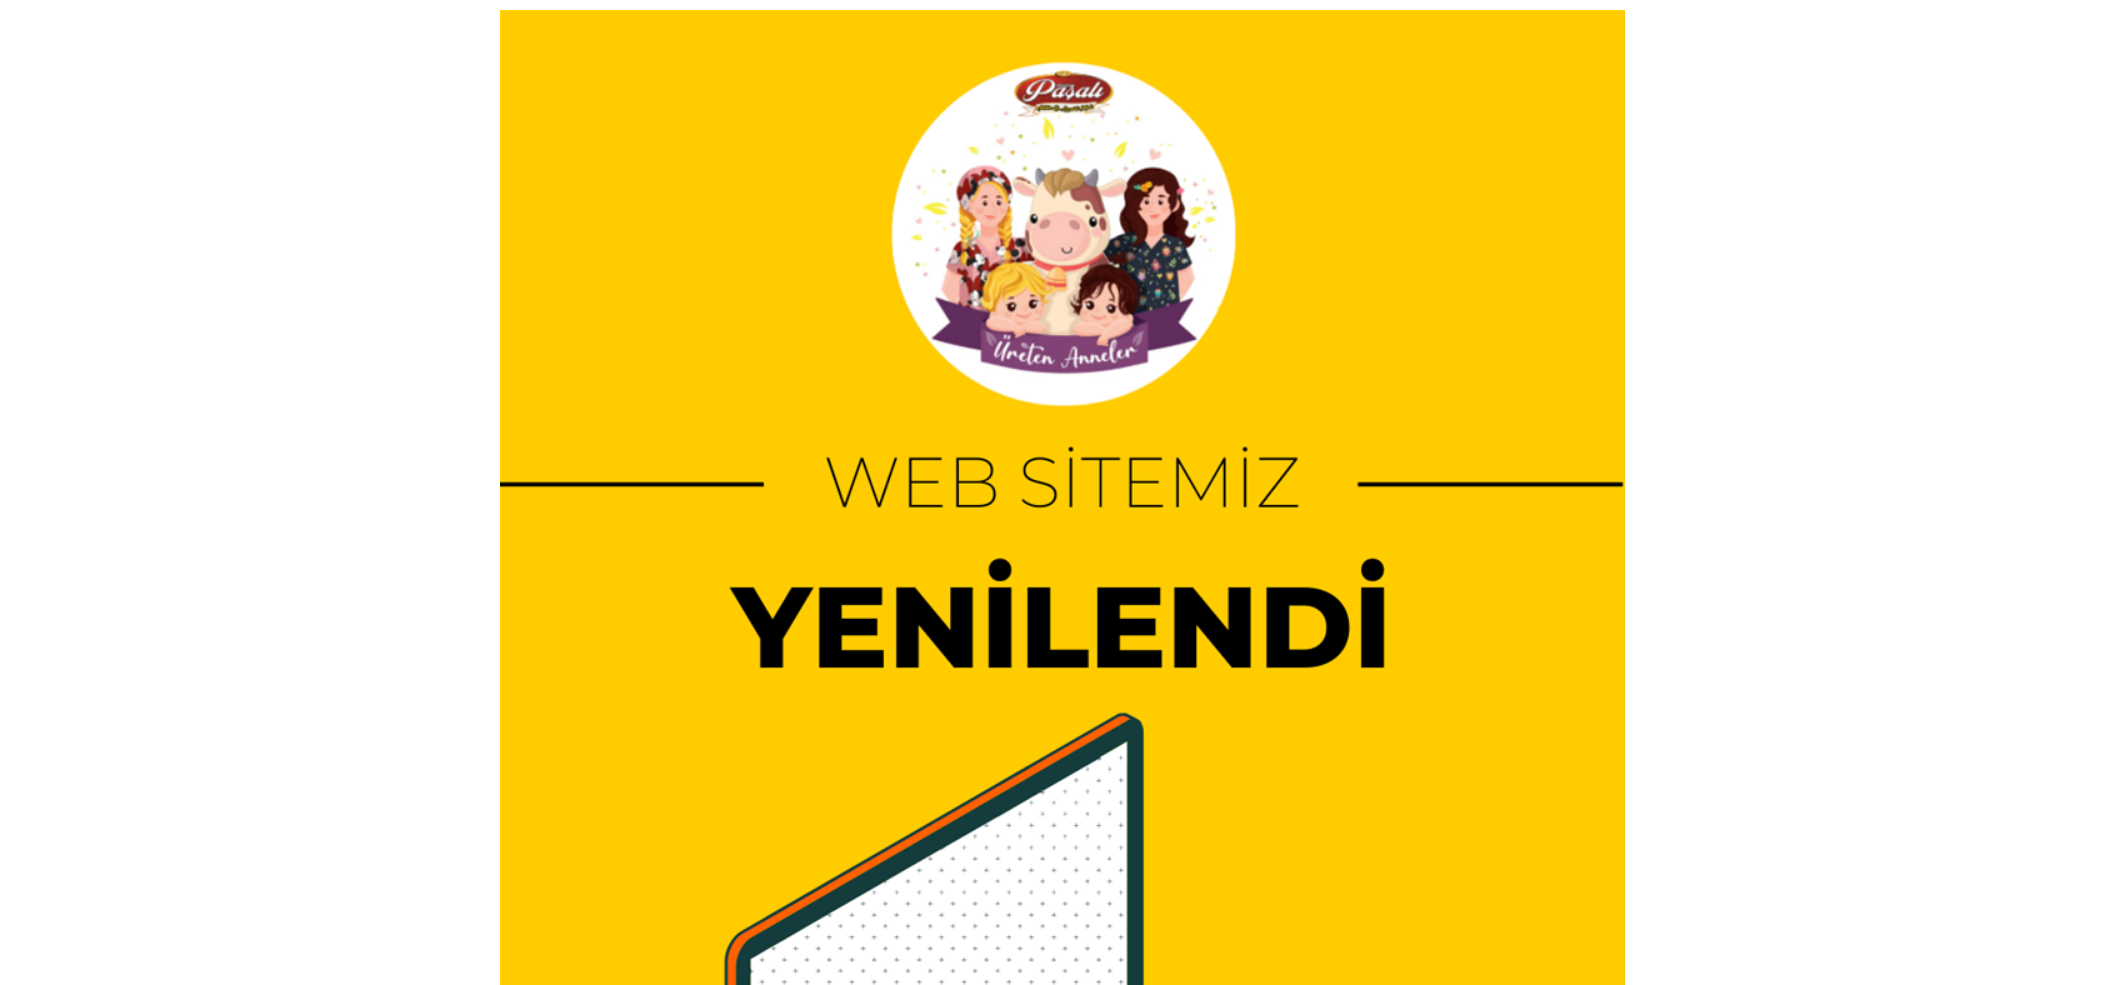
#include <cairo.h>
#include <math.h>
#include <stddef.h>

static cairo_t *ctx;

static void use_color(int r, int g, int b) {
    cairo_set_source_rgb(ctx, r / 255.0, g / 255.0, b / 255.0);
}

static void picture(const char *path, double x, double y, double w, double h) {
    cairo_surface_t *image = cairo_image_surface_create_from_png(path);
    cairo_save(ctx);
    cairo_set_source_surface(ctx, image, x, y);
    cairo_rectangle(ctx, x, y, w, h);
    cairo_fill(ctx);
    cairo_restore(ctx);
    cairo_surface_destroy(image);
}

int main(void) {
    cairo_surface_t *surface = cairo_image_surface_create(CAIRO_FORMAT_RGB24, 2124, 985);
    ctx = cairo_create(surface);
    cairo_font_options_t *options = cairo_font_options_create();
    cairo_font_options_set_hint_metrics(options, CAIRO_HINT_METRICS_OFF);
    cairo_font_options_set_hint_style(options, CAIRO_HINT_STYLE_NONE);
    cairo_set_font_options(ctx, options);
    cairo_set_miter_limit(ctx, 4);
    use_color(255, 255, 255);
    cairo_paint(ctx);
    picture("img1.png", 500, 10, 1125, 975);
    cairo_surface_write_to_png(surface, "result.png");
    cairo_font_options_destroy(options);
    cairo_destroy(ctx);
    cairo_surface_destroy(surface);
    return 0;
}
